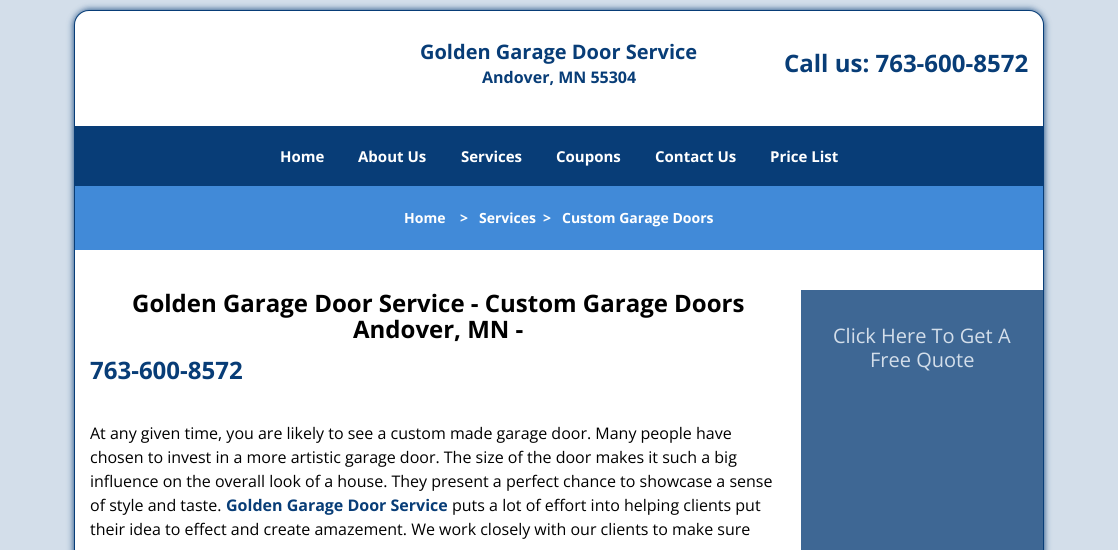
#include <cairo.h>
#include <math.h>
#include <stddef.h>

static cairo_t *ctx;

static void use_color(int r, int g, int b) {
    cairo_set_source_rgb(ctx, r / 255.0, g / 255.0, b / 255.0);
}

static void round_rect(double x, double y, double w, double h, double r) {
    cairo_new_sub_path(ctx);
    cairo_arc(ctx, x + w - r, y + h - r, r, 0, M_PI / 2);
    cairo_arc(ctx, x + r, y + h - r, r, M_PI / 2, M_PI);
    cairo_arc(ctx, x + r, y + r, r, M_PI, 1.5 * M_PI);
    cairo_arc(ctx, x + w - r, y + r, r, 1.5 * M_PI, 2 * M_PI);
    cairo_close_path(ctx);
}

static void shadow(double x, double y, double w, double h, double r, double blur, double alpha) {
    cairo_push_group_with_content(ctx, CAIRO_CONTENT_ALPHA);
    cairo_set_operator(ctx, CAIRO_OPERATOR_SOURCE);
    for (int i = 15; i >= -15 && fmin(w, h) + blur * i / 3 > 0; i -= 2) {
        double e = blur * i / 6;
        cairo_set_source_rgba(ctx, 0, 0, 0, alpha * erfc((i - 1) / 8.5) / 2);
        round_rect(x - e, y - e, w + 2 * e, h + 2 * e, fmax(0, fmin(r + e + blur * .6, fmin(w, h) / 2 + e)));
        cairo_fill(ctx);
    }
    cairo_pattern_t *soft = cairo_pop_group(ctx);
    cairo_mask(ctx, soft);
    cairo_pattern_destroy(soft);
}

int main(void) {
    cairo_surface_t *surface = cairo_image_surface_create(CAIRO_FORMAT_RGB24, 1118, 550);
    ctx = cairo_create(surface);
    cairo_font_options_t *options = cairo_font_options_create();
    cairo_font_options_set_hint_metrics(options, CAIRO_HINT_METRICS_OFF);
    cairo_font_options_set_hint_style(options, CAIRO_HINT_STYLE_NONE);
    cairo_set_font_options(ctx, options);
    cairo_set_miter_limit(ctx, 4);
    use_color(211, 222, 234);
    cairo_paint(ctx);
    use_color(8, 61, 119);
    shadow(74, 10, 970, 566, 15, 3.5, 1);
    cairo_new_path(ctx);
    cairo_move_to(ctx, 89, 10.5);
    cairo_line_to(ctx, 1029, 10.5);
    cairo_curve_to(ctx, 1037, 10.5, 1043.5, 17, 1043.5, 25);
    cairo_line_to(ctx, 1043.5, 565.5);
    cairo_line_to(ctx, 74.5, 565.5);
    cairo_line_to(ctx, 74.5, 25);
    cairo_curve_to(ctx, 74.5, 17, 81, 10.5, 89, 10.5);
    cairo_close_path(ctx);
    use_color(8, 61, 119);
    cairo_set_line_width(ctx, 1);
    cairo_stroke(ctx);
    use_color(255, 255, 255);
    cairo_new_path(ctx);
    cairo_move_to(ctx, 89, 11);
    cairo_line_to(ctx, 1029, 11);
    cairo_curve_to(ctx, 1036.5, 11, 1043, 17.5, 1043, 25);
    cairo_line_to(ctx, 1043, 126);
    cairo_line_to(ctx, 75, 126);
    cairo_line_to(ctx, 75, 25);
    cairo_curve_to(ctx, 75, 17.5, 81.5, 11, 89, 11);
    cairo_close_path(ctx);
    cairo_fill(ctx);
    cairo_select_font_face(ctx, "Open Sans", CAIRO_FONT_SLANT_NORMAL, CAIRO_FONT_WEIGHT_BOLD);
    cairo_set_font_size(ctx, 20);
    use_color(8, 61, 119);
    cairo_move_to(ctx, 420, 59);
    cairo_show_text(ctx, "Golden Garage Door Service");
    cairo_set_font_size(ctx, 16);
    cairo_move_to(ctx, 482, 83);
    cairo_show_text(ctx, "Andover, MN 55304");
    cairo_set_font_size(ctx, 24);
    cairo_move_to(ctx, 784, 72);
    cairo_show_text(ctx, "Call us: 763-600-8572");
    cairo_rectangle(ctx, 75, 126, 968, 60);
    cairo_fill(ctx);
    cairo_set_font_size(ctx, 15);
    use_color(255, 255, 255);
    cairo_move_to(ctx, 280, 162);
    cairo_show_text(ctx, "Home");
    cairo_move_to(ctx, 358, 162);
    cairo_show_text(ctx, "About Us");
    cairo_move_to(ctx, 461, 162);
    cairo_show_text(ctx, "Services");
    cairo_move_to(ctx, 556, 162);
    cairo_show_text(ctx, "Coupons");
    cairo_move_to(ctx, 655, 162);
    cairo_show_text(ctx, "Contact Us");
    cairo_move_to(ctx, 770, 162);
    cairo_show_text(ctx, "Price List");
    use_color(65, 138, 216);
    cairo_rectangle(ctx, 75, 186, 968, 64);
    cairo_fill(ctx);
    cairo_set_font_size(ctx, 14);
    use_color(255, 255, 255);
    cairo_move_to(ctx, 404, 223);
    cairo_show_text(ctx, "Home");
    cairo_move_to(ctx, 460, 223);
    cairo_show_text(ctx, ">");
    cairo_move_to(ctx, 479, 223);
    cairo_show_text(ctx, "Services");
    cairo_move_to(ctx, 543, 223);
    cairo_show_text(ctx, ">");
    cairo_move_to(ctx, 562, 223);
    cairo_show_text(ctx, "Custom Garage Doors");
    cairo_rectangle(ctx, 75, 250, 968, 300);
    cairo_fill(ctx);
    cairo_set_font_size(ctx, 24);
    use_color(0, 0, 0);
    cairo_move_to(ctx, 132, 312);
    cairo_show_text(ctx, "Golden Garage Door Service - Custom Garage Doors");
    cairo_move_to(ctx, 353, 338);
    cairo_show_text(ctx, "Andover, MN -");
    use_color(8, 61, 119);
    cairo_move_to(ctx, 90, 379);
    cairo_show_text(ctx, "763-600-8572");
    cairo_select_font_face(ctx, "Open Sans", CAIRO_FONT_SLANT_NORMAL, CAIRO_FONT_WEIGHT_NORMAL);
    cairo_set_font_size(ctx, 16);
    use_color(0, 0, 0);
    cairo_move_to(ctx, 90, 439);
    cairo_show_text(ctx, "At any given time, you are likely to see a custom made garage door. Many people have");
    cairo_move_to(ctx, 90, 463);
    cairo_show_text(ctx, "chosen to invest in a more artistic garage door. The size of the door makes it such a big");
    cairo_move_to(ctx, 90, 487);
    cairo_show_text(ctx, "influence on the overall look of a house. They present a perfect chance to showcase a sense");
    cairo_move_to(ctx, 90, 511);
    cairo_show_text(ctx, "of style and taste.");
    cairo_select_font_face(ctx, "Open Sans", CAIRO_FONT_SLANT_NORMAL, CAIRO_FONT_WEIGHT_BOLD);
    use_color(8, 61, 119);
    cairo_move_to(ctx, 226, 511);
    cairo_show_text(ctx, "Golden Garage Door Service");
    cairo_select_font_face(ctx, "Open Sans", CAIRO_FONT_SLANT_NORMAL, CAIRO_FONT_WEIGHT_NORMAL);
    use_color(0, 0, 0);
    cairo_move_to(ctx, 452, 511);
    cairo_show_text(ctx, "puts a lot of effort into helping clients put");
    cairo_move_to(ctx, 90, 535);
    cairo_show_text(ctx, "their idea to effect and create amazement. We work closely with our clients to make sure");
    use_color(62, 103, 148);
    cairo_rectangle(ctx, 801, 290, 242, 260);
    cairo_fill(ctx);
    cairo_set_font_size(ctx, 20);
    use_color(211, 222, 234);
    cairo_move_to(ctx, 833, 343);
    cairo_show_text(ctx, "Click Here To Get A");
    cairo_move_to(ctx, 870, 367);
    cairo_show_text(ctx, "Free Quote");
    cairo_surface_write_to_png(surface, "result.png");
    cairo_font_options_destroy(options);
    cairo_destroy(ctx);
    cairo_surface_destroy(surface);
    return 0;
}
